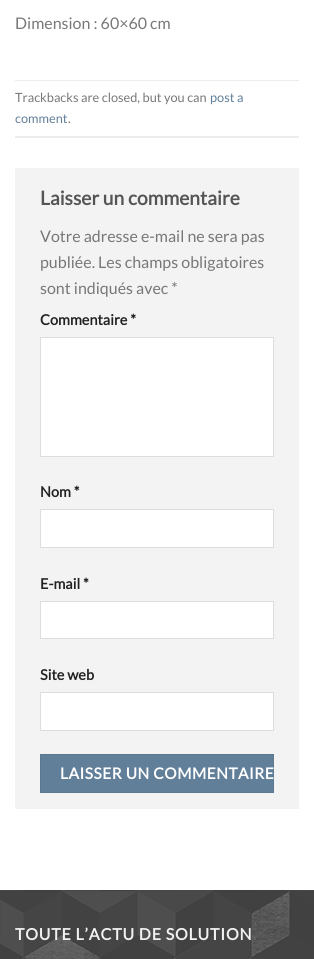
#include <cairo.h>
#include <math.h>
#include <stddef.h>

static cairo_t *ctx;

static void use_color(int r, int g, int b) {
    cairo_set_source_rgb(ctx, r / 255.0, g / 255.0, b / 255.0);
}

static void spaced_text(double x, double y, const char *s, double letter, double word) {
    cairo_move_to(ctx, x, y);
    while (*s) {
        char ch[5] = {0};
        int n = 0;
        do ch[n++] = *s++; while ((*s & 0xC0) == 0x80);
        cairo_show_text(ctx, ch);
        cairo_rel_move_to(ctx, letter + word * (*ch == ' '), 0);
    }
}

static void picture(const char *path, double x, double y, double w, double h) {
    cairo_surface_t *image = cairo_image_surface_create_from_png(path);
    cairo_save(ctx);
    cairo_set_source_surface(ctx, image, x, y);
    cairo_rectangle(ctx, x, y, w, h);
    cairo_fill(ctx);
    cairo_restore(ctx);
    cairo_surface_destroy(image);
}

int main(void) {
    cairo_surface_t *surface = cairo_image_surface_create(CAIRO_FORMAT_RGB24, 314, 959);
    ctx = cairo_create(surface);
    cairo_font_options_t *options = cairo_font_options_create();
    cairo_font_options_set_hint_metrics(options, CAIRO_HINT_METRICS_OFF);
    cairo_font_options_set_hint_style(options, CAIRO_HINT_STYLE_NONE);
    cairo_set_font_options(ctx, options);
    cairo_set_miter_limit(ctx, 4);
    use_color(255, 255, 255);
    cairo_paint(ctx);
    cairo_select_font_face(ctx, "Lato", CAIRO_FONT_SLANT_NORMAL, CAIRO_FONT_WEIGHT_NORMAL);
    cairo_set_font_size(ctx, 16);
    use_color(119, 119, 119);
    cairo_move_to(ctx, 15, 29);
    cairo_show_text(ctx, "Dimension : 60×60 cm");
    use_color(236, 236, 236);
    cairo_rectangle(ctx, 15, 80, 284, 1);
    cairo_fill(ctx);
    cairo_rectangle(ctx, 15, 136, 284, 2);
    cairo_fill(ctx);
    cairo_set_font_size(ctx, 12.75);
    use_color(119, 119, 119);
    cairo_move_to(ctx, 15, 102);
    cairo_show_text(ctx, "Trackbacks are closed, but you can");
    use_color(98, 127, 154);
    cairo_move_to(ctx, 210, 102);
    cairo_show_text(ctx, "post a");
    cairo_move_to(ctx, 15, 123);
    cairo_show_text(ctx, "comment");
    use_color(119, 119, 119);
    cairo_move_to(ctx, 68, 123);
    cairo_show_text(ctx, ".");
    use_color(243, 243, 243);
    cairo_rectangle(ctx, 15, 168, 284, 641);
    cairo_fill(ctx);
    cairo_select_font_face(ctx, "Lato", CAIRO_FONT_SLANT_NORMAL, CAIRO_FONT_WEIGHT_BOLD);
    cairo_set_font_size(ctx, 19.25);
    use_color(85, 85, 85);
    cairo_move_to(ctx, 40, 205);
    cairo_show_text(ctx, "Laisser un commentaire");
    cairo_select_font_face(ctx, "Lato", CAIRO_FONT_SLANT_NORMAL, CAIRO_FONT_WEIGHT_NORMAL);
    cairo_set_font_size(ctx, 16);
    use_color(119, 119, 119);
    cairo_move_to(ctx, 40, 242);
    cairo_show_text(ctx, "Votre adresse e-mail ne sera pas");
    cairo_move_to(ctx, 40, 268);
    cairo_show_text(ctx, "publiée. Les champs obligatoires");
    cairo_move_to(ctx, 40, 294);
    cairo_show_text(ctx, "sont indiqués avec *");
    cairo_select_font_face(ctx, "Lato", CAIRO_FONT_SLANT_NORMAL, CAIRO_FONT_WEIGHT_BOLD);
    cairo_set_font_size(ctx, 14.5);
    use_color(34, 34, 34);
    cairo_move_to(ctx, 40, 325);
    cairo_show_text(ctx, "Commentaire *");
    use_color(255, 255, 255);
    cairo_rectangle(ctx, 40.5, 337.5, 233, 119);
    cairo_fill_preserve(ctx);
    use_color(221, 221, 221);
    cairo_set_line_width(ctx, 1);
    cairo_stroke(ctx);
    use_color(34, 34, 34);
    cairo_move_to(ctx, 40, 497);
    cairo_show_text(ctx, "Nom *");
    use_color(255, 255, 255);
    cairo_rectangle(ctx, 40.5, 509.5, 233, 38);
    cairo_fill_preserve(ctx);
    use_color(221, 221, 221);
    cairo_stroke(ctx);
    use_color(34, 34, 34);
    cairo_move_to(ctx, 40, 589);
    cairo_show_text(ctx, "E-mail *");
    use_color(255, 255, 255);
    cairo_rectangle(ctx, 40.5, 601.5, 233, 37);
    cairo_fill_preserve(ctx);
    use_color(221, 221, 221);
    cairo_stroke(ctx);
    use_color(34, 34, 34);
    cairo_move_to(ctx, 40, 680);
    cairo_show_text(ctx, "Site web");
    use_color(255, 255, 255);
    cairo_rectangle(ctx, 40.5, 692.5, 233, 38);
    cairo_fill_preserve(ctx);
    use_color(221, 221, 221);
    cairo_stroke(ctx);
    use_color(98, 127, 154);
    cairo_rectangle(ctx, 40.5, 754.5, 233, 38);
    cairo_fill_preserve(ctx);
    use_color(93, 121, 146);
    cairo_stroke(ctx);
    cairo_set_font_size(ctx, 15.5);
    use_color(255, 255, 255);
    spaced_text(60, 779, "LAISSER UN COMMENTAIRE", 0.5, 0);
    picture("img1.png", 0, 890, 314, 69);
    cairo_set_source_rgba(ctx, 0, 0, 0, 0.05);
    cairo_rectangle(ctx, 0, 890, 314, 1);
    cairo_fill(ctx);
    cairo_set_font_size(ctx, 16);
    use_color(241, 241, 241);
    spaced_text(15, 940, "TOUTE L’ACTU DE SOLUTION", 0.8, 0);
    cairo_surface_write_to_png(surface, "result.png");
    cairo_font_options_destroy(options);
    cairo_destroy(ctx);
    cairo_surface_destroy(surface);
    return 0;
}
